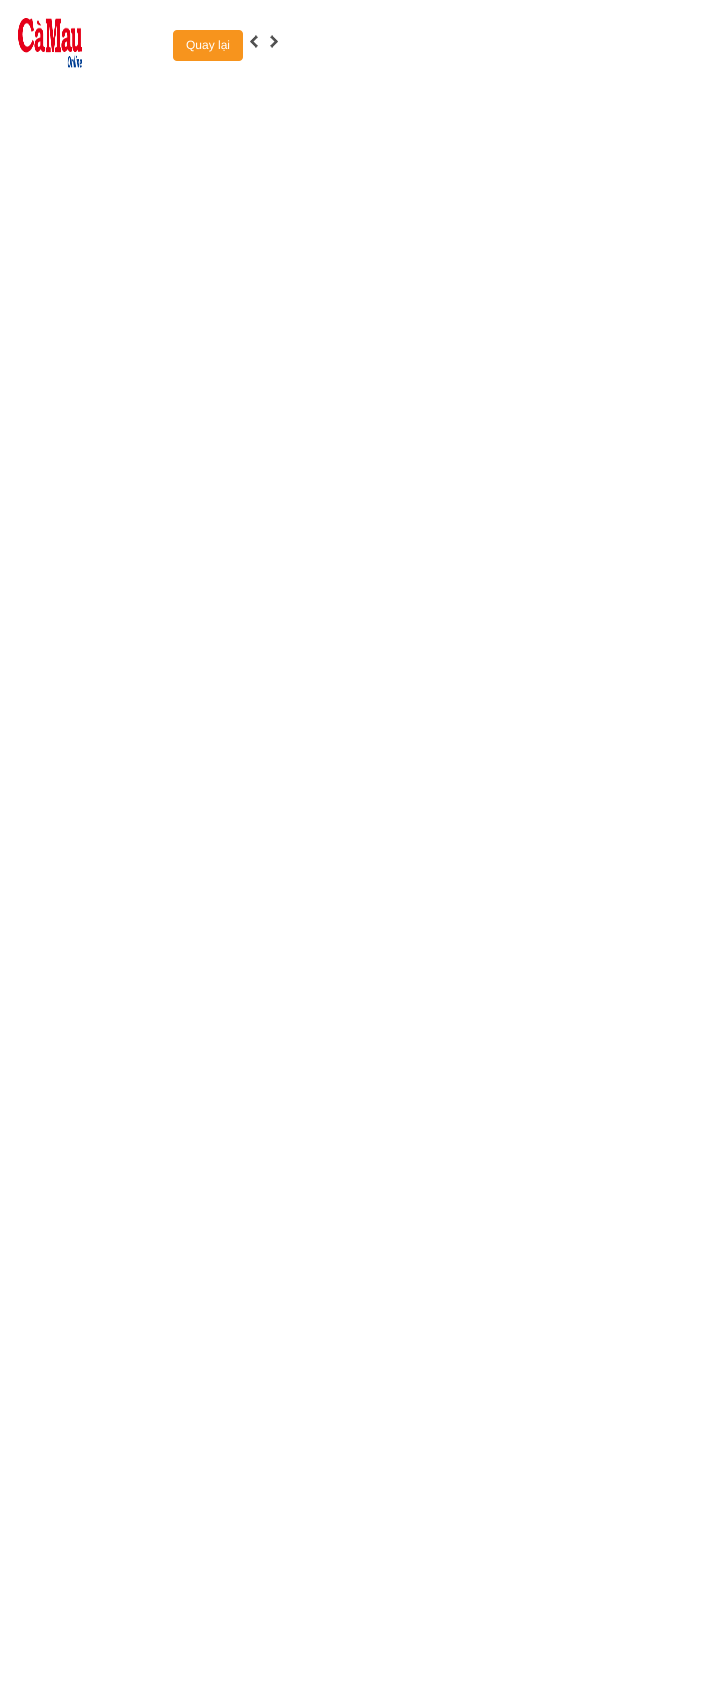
#include <cairo.h>
#include <math.h>
#include <stddef.h>

static cairo_t *ctx;

static void use_color(int r, int g, int b) {
    cairo_set_source_rgb(ctx, r / 255.0, g / 255.0, b / 255.0);
}

static void round_rect(double x, double y, double w, double h, double r) {
    cairo_new_sub_path(ctx);
    cairo_arc(ctx, x + w - r, y + h - r, r, 0, M_PI / 2);
    cairo_arc(ctx, x + r, y + h - r, r, M_PI / 2, M_PI);
    cairo_arc(ctx, x + r, y + r, r, M_PI, 1.5 * M_PI);
    cairo_arc(ctx, x + w - r, y + r, r, 1.5 * M_PI, 2 * M_PI);
    cairo_close_path(ctx);
}

static void picture(const char *path, double x, double y, double w, double h) {
    cairo_surface_t *image = cairo_image_surface_create_from_png(path);
    cairo_save(ctx);
    cairo_set_source_surface(ctx, image, x, y);
    cairo_rectangle(ctx, x, y, w, h);
    cairo_fill(ctx);
    cairo_restore(ctx);
    cairo_surface_destroy(image);
}

int main(void) {
    cairo_surface_t *surface = cairo_image_surface_create(CAIRO_FORMAT_RGB24, 724, 1704);
    ctx = cairo_create(surface);
    cairo_font_options_t *options = cairo_font_options_create();
    cairo_font_options_set_hint_metrics(options, CAIRO_HINT_METRICS_OFF);
    cairo_font_options_set_hint_style(options, CAIRO_HINT_STYLE_NONE);
    cairo_set_font_options(ctx, options);
    cairo_set_miter_limit(ctx, 4);
    use_color(255, 255, 255);
    cairo_paint(ctx);
    picture("img1.png", 18, 18, 64, 50);
    use_color(247, 148, 29);
    round_rect(173, 30, 70, 31, 4);
    cairo_fill(ctx);
    cairo_select_font_face(ctx, "Liberation Sans", CAIRO_FONT_SLANT_NORMAL, CAIRO_FONT_WEIGHT_NORMAL);
    cairo_set_font_size(ctx, 12);
    use_color(255, 255, 255);
    cairo_move_to(ctx, 186, 49);
    cairo_show_text(ctx, "Quay lại");
    picture("img2.png", 250, 35, 8, 13);
    picture("img3.png", 270, 35, 8, 13);
    cairo_surface_write_to_png(surface, "result.png");
    cairo_font_options_destroy(options);
    cairo_destroy(ctx);
    cairo_surface_destroy(surface);
    return 0;
}
